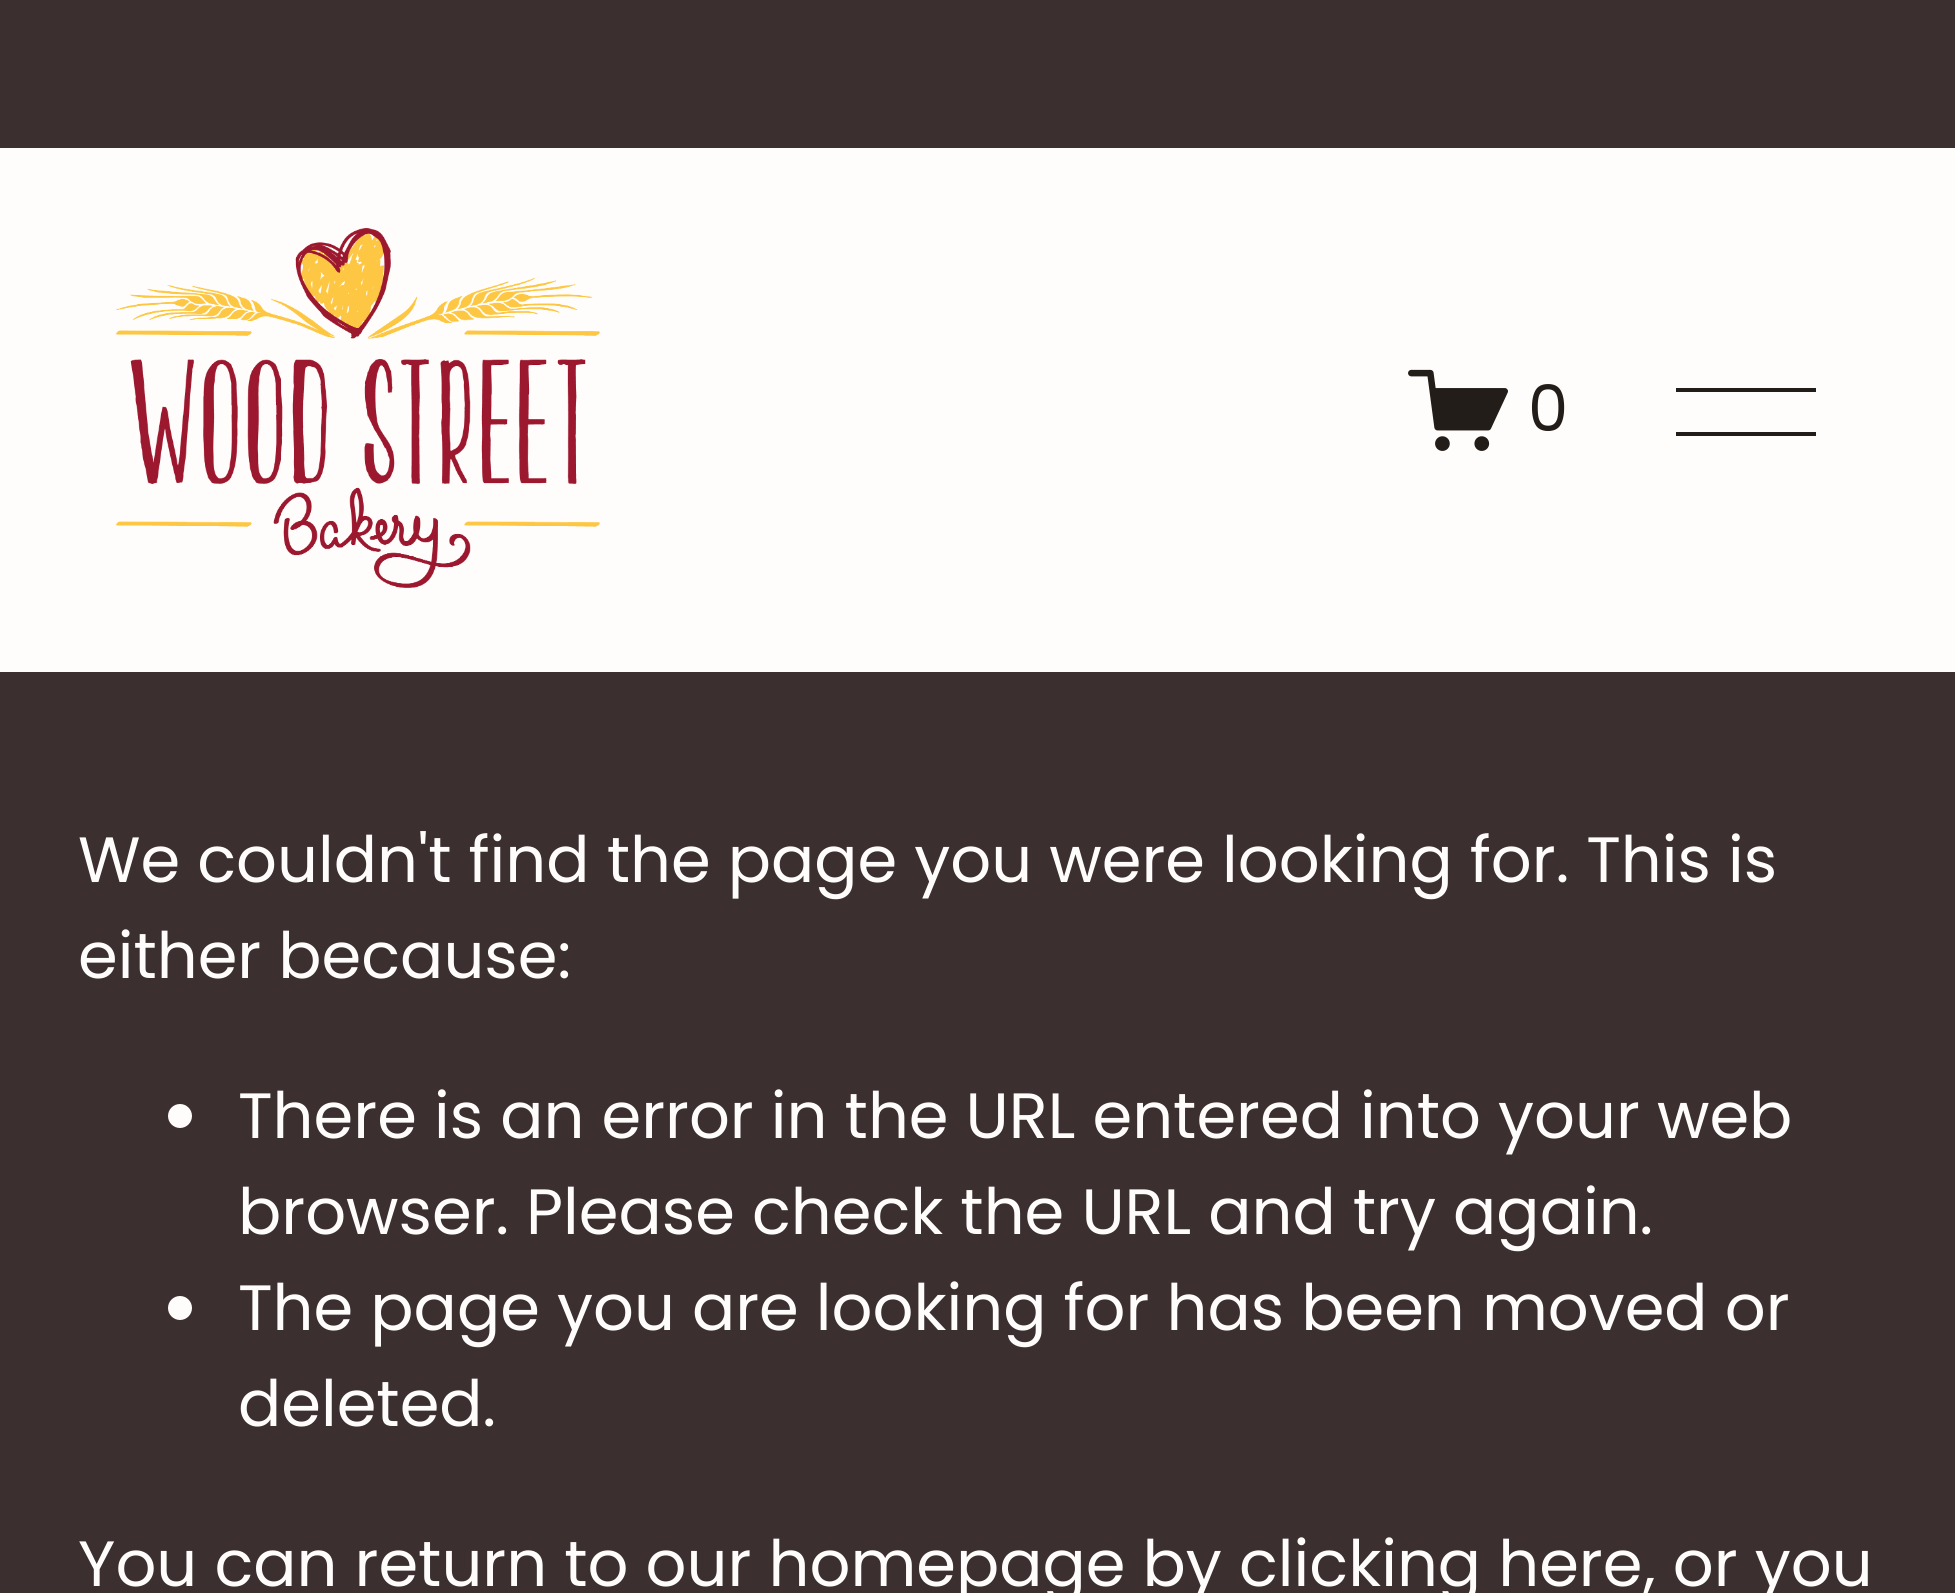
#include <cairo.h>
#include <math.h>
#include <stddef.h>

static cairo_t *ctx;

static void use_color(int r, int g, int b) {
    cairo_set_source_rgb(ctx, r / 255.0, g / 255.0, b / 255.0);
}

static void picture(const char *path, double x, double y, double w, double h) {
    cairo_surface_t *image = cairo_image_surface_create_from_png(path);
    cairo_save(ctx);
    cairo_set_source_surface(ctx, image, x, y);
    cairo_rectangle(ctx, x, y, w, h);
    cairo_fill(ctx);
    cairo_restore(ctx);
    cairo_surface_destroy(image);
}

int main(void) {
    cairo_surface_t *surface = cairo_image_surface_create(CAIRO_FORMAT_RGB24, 1955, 1593);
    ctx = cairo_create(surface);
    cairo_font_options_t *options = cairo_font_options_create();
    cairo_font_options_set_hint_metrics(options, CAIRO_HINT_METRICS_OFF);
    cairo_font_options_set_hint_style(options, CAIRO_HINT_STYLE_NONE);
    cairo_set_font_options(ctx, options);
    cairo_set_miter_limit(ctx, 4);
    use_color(59, 47, 48);
    cairo_paint(ctx);
    use_color(255, 253, 251);
    cairo_rectangle(ctx, 0, 148, 1955, 524);
    cairo_fill(ctx);
    picture("img1.png", 116, 228, 484, 360);
    picture("img2.png", 1408, 369, 100, 82);
    cairo_select_font_face(ctx, "Poppins", CAIRO_FONT_SLANT_NORMAL, CAIRO_FONT_WEIGHT_NORMAL);
    cairo_set_font_size(ctx, 64);
    use_color(34, 29, 25);
    cairo_move_to(ctx, 1528, 431);
    cairo_show_text(ctx, "0");
    cairo_rectangle(ctx, 1676, 388, 140, 4);
    cairo_fill(ctx);
    cairo_rectangle(ctx, 1676, 432, 140, 4);
    cairo_fill(ctx);
    use_color(255, 253, 251);
    cairo_move_to(ctx, 78, 882);
    cairo_show_text(ctx, "We couldn't find the page you were looking for. This is");
    cairo_move_to(ctx, 78, 978);
    cairo_show_text(ctx, "either because:");
    cairo_new_path(ctx);
    cairo_arc(ctx, 180, 1116, 12, 0, 2 * M_PI);
    cairo_fill(ctx);
    cairo_move_to(ctx, 238, 1138);
    cairo_show_text(ctx, "There is an error in the URL entered into your web");
    cairo_move_to(ctx, 238, 1234);
    cairo_show_text(ctx, "browser. Please check the URL and try again.");
    cairo_new_path(ctx);
    cairo_arc(ctx, 180, 1308, 12, 0, 2 * M_PI);
    cairo_fill(ctx);
    cairo_move_to(ctx, 238, 1330);
    cairo_show_text(ctx, "The page you are looking for has been moved or");
    cairo_move_to(ctx, 238, 1426);
    cairo_show_text(ctx, "deleted.");
    cairo_move_to(ctx, 78, 1586);
    cairo_show_text(ctx, "You can return to our homepage by");
    cairo_move_to(ctx, 1239, 1586);
    cairo_show_text(ctx, "clicking here");
    cairo_move_to(ctx, 1643, 1586);
    cairo_show_text(ctx, ", or you");
    cairo_surface_write_to_png(surface, "result.png");
    cairo_font_options_destroy(options);
    cairo_destroy(ctx);
    cairo_surface_destroy(surface);
    return 0;
}
